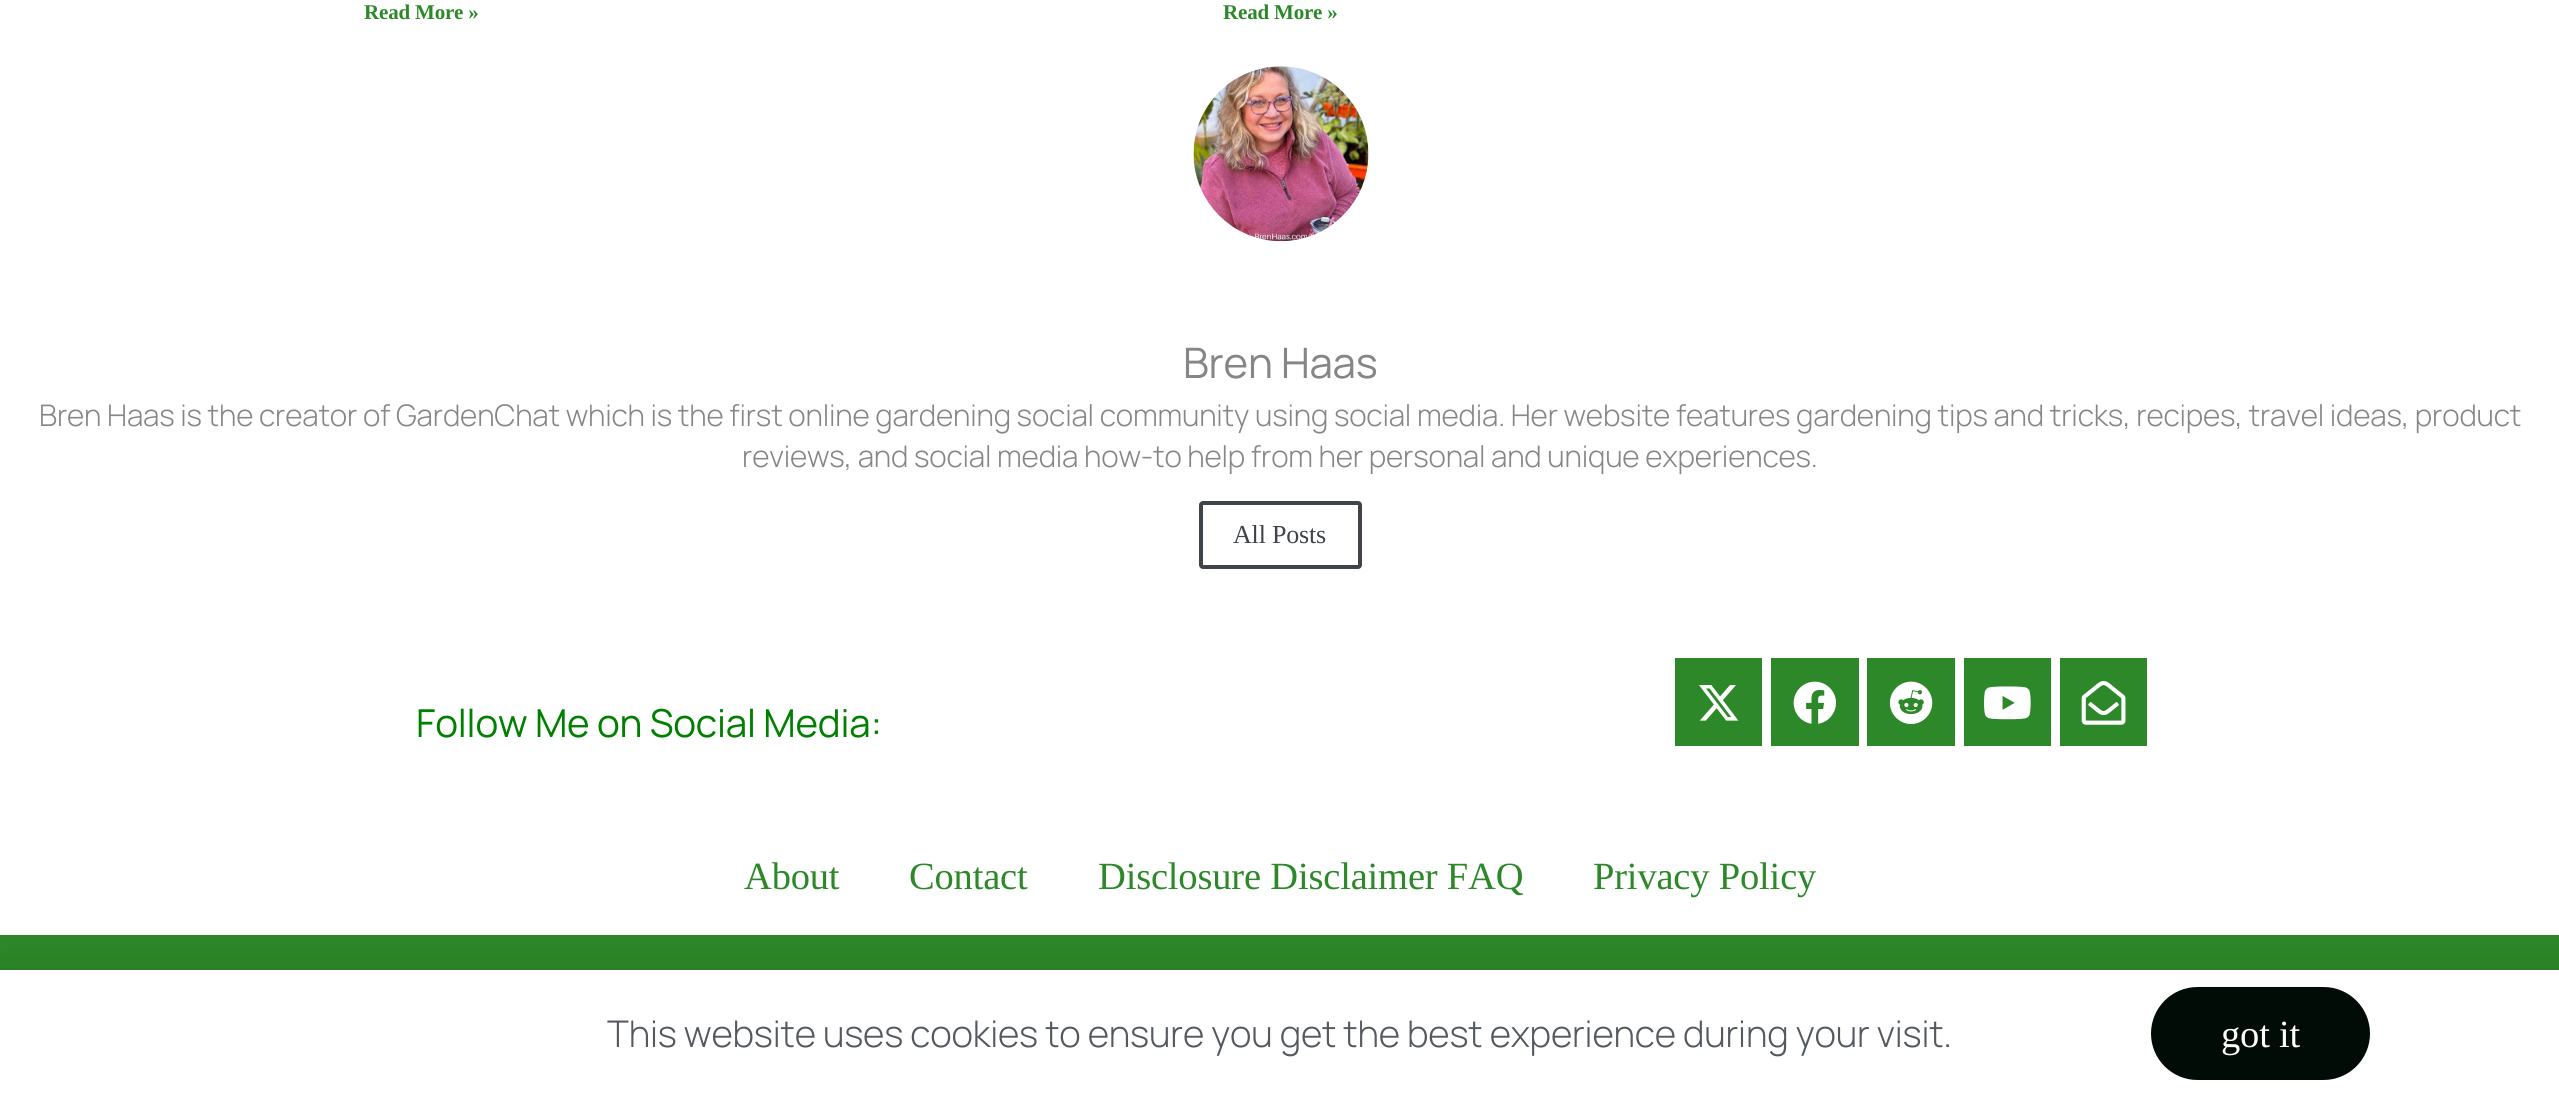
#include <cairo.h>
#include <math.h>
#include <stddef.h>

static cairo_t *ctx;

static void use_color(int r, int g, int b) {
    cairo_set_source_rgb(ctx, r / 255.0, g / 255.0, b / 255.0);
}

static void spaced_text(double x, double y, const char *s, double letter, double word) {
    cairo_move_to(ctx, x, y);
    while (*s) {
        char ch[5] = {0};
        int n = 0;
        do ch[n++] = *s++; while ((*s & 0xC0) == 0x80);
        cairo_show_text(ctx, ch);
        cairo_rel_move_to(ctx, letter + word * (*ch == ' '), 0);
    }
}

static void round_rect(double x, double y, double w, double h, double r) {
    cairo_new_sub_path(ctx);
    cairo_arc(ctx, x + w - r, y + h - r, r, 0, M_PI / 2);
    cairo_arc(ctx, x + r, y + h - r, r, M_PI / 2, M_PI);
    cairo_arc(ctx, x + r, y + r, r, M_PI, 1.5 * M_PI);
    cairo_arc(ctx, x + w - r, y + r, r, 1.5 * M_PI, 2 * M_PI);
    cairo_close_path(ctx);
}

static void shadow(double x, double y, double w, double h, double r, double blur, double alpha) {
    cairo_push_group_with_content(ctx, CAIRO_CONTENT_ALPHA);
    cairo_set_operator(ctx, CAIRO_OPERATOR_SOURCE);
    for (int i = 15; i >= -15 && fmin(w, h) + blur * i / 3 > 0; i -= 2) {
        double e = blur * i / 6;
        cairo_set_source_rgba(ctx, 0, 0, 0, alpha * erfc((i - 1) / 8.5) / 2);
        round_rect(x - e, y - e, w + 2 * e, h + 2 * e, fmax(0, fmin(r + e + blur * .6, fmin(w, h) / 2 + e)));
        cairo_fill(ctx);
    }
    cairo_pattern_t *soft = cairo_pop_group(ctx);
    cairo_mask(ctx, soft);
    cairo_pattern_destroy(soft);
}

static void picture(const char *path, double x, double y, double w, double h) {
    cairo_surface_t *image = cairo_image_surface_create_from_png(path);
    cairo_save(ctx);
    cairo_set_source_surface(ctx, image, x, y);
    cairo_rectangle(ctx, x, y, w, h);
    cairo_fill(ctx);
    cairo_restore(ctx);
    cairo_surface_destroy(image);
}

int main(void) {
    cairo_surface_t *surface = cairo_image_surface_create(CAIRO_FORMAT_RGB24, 2559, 1097);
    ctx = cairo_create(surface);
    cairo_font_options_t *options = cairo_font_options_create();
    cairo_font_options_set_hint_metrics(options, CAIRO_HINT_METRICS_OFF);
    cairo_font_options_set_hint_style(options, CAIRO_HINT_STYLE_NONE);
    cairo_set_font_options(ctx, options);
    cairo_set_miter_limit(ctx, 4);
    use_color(255, 255, 255);
    cairo_paint(ctx);
    cairo_select_font_face(ctx, "Liberation Serif", CAIRO_FONT_SLANT_NORMAL, CAIRO_FONT_WEIGHT_BOLD);
    cairo_set_font_size(ctx, 21);
    use_color(45, 136, 41);
    spaced_text(364, 19, "Read More »", -0.18, 0);
    spaced_text(1223, 19, "Read More »", -0.18, 0);
    picture("img1.png", 1193, 66, 176, 176);
    cairo_select_font_face(ctx, "Manrope", CAIRO_FONT_SLANT_NORMAL, CAIRO_FONT_WEIGHT_NORMAL);
    cairo_set_font_size(ctx, 42);
    use_color(135, 134, 134);
    spaced_text(1183, 378, "Bren Haas", -0.18, 0);
    cairo_select_font_face(ctx, "Manrope Light", CAIRO_FONT_SLANT_NORMAL, CAIRO_FONT_WEIGHT_NORMAL);
    cairo_set_font_size(ctx, 29.75);
    spaced_text(39, 426, "Bren Haas is the creator of GardenChat which is the first online gardening social community using social media. Her website features gardening tips and tricks, recipes, travel ideas, product", -0.18, 0);
    spaced_text(742, 467, "reviews, and social media how-to help from her personal and unique experiences.", -0.18, 0);
    round_rect(1201, 503, 159, 64, 2);
    use_color(63, 68, 75);
    cairo_set_line_width(ctx, 4);
    cairo_stroke(ctx);
    cairo_select_font_face(ctx, "Liberation Serif", CAIRO_FONT_SLANT_NORMAL, CAIRO_FONT_WEIGHT_NORMAL);
    cairo_set_font_size(ctx, 26);
    spaced_text(1233, 543, "All Posts", -0.18, 0);
    cairo_select_font_face(ctx, "Manrope", CAIRO_FONT_SLANT_NORMAL, CAIRO_FONT_WEIGHT_NORMAL);
    cairo_set_font_size(ctx, 38.5);
    use_color(0, 128, 0);
    spaced_text(416, 737, "Follow Me on Social Media:", -0.18, 0);
    use_color(45, 136, 41);
    cairo_rectangle(ctx, 1675, 658, 87, 88);
    cairo_fill(ctx);
    picture("img2.png", 1699, 685, 40, 36);
    cairo_rectangle(ctx, 1771, 658, 88, 88);
    cairo_fill(ctx);
    picture("img3.png", 1793, 681, 43, 43);
    cairo_rectangle(ctx, 1867, 658, 88, 88);
    cairo_fill(ctx);
    picture("img4.png", 1889, 681, 44, 43);
    cairo_rectangle(ctx, 1964, 658, 87, 88);
    cairo_fill(ctx);
    picture("img5.png", 1984, 686, 47, 34);
    cairo_rectangle(ctx, 2060, 658, 87, 88);
    cairo_fill(ctx);
    picture("img6.png", 2081, 681, 45, 44);
    cairo_select_font_face(ctx, "Liberation Serif", CAIRO_FONT_SLANT_NORMAL, CAIRO_FONT_WEIGHT_NORMAL);
    spaced_text(744, 889, "About", -0.18, 0);
    spaced_text(909, 889, "Contact", -0.18, 0);
    spaced_text(1098, 889, "Disclosure Disclaimer FAQ", -0.18, 0);
    spaced_text(1593, 889, "Privacy Policy", -0.18, 0);
    cairo_rectangle(ctx, 0, 935, 2559, 35);
    cairo_fill(ctx);
    use_color(0, 0, 0);
    shadow(-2, 978, 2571, 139, 0, 20, 0.2);
    use_color(255, 255, 255);
    cairo_rectangle(ctx, 0, 970, 2559, 127);
    cairo_fill(ctx);
    cairo_select_font_face(ctx, "Manrope Light", CAIRO_FONT_SLANT_NORMAL, CAIRO_FONT_WEIGHT_NORMAL);
    cairo_set_font_size(ctx, 36.75);
    use_color(84, 89, 95);
    spaced_text(607, 1047, "This website uses cookies to ensure you get the best experience during your visit.", -0.18, 0);
    use_color(0, 12, 5);
    round_rect(2151, 987, 219, 93, 46.5);
    cairo_fill(ctx);
    cairo_select_font_face(ctx, "Liberation Serif", CAIRO_FONT_SLANT_NORMAL, CAIRO_FONT_WEIGHT_NORMAL);
    cairo_set_font_size(ctx, 38.5);
    use_color(255, 255, 255);
    spaced_text(2221, 1047, "got it", -0.18, 0);
    cairo_surface_write_to_png(surface, "result.png");
    cairo_font_options_destroy(options);
    cairo_destroy(ctx);
    cairo_surface_destroy(surface);
    return 0;
}
